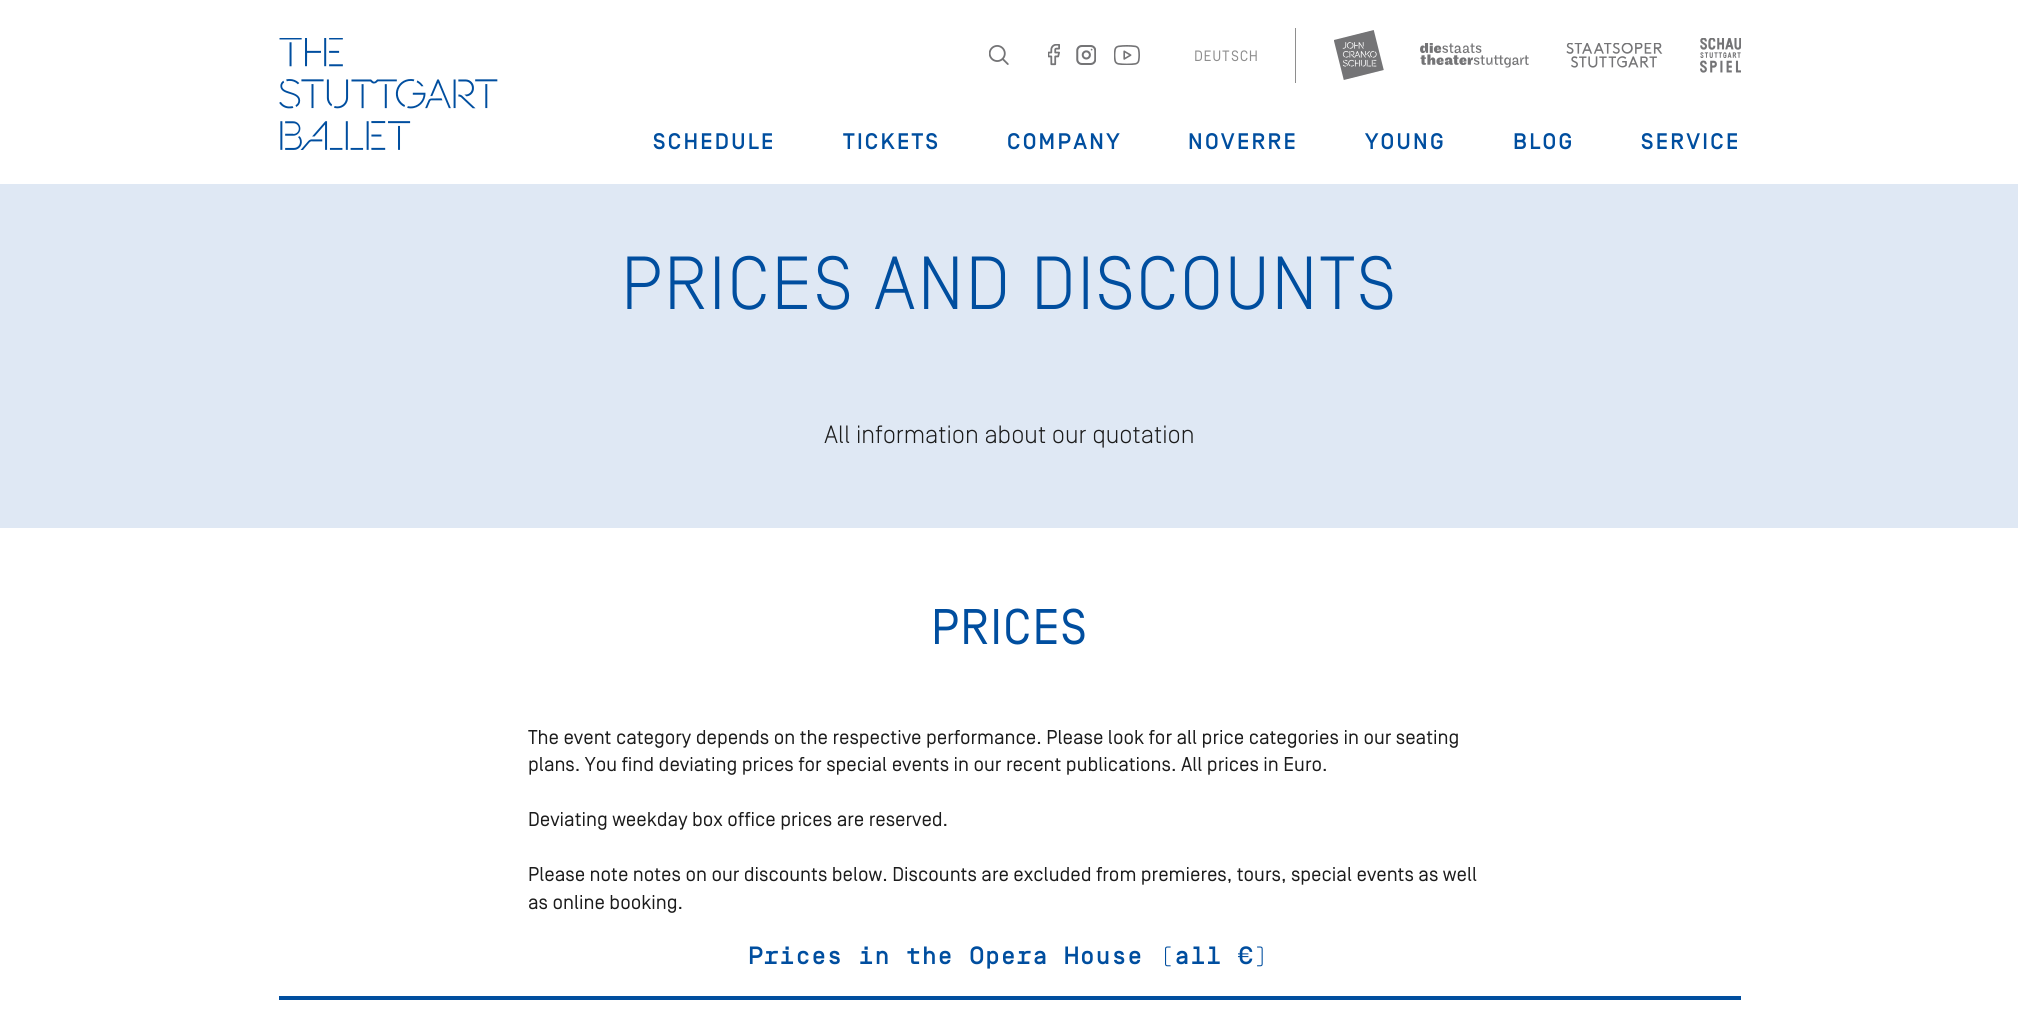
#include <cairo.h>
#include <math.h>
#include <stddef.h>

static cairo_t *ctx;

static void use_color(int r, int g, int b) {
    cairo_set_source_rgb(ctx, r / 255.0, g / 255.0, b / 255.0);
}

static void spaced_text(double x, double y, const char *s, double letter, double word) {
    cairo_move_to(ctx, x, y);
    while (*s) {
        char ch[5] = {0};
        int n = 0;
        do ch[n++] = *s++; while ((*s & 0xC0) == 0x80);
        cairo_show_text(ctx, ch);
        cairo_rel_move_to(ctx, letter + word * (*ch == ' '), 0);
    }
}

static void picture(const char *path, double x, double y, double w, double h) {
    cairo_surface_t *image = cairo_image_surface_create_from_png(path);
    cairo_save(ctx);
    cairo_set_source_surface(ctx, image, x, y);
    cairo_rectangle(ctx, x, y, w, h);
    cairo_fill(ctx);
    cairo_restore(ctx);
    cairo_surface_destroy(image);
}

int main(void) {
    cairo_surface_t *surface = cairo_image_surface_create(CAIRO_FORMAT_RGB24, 2018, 1017);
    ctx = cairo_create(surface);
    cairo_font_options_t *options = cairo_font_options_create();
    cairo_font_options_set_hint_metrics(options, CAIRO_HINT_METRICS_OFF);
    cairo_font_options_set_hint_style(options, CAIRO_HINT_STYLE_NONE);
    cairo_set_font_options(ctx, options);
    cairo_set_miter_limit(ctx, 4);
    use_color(255, 255, 255);
    cairo_paint(ctx);
    picture("img1.png", 279, 38, 219, 112);
    picture("img2.png", 989, 45, 20, 20);
    picture("img3.png", 1048, 44, 12, 22);
    picture("img4.png", 1076, 45, 20, 20);
    picture("img5.png", 1114, 45, 26, 20);
    cairo_select_font_face(ctx, "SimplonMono", CAIRO_FONT_SLANT_NORMAL, CAIRO_FONT_WEIGHT_NORMAL);
    cairo_set_font_size(ctx, 15);
    use_color(142, 142, 142);
    cairo_move_to(ctx, 1194, 61);
    cairo_show_text(ctx, "DEUTSCH");
    cairo_rectangle(ctx, 1295, 28, 1, 55);
    cairo_fill(ctx);
    picture("img6.png", 1334, 30, 50, 50);
    picture("img7.png", 1420, 43, 109, 25);
    picture("img8.png", 1566, 43, 97, 25);
    picture("img9.png", 1700, 38, 41, 35);
    cairo_select_font_face(ctx, "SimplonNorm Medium", CAIRO_FONT_SLANT_NORMAL, CAIRO_FONT_WEIGHT_NORMAL);
    cairo_set_font_size(ctx, 22.5);
    use_color(0, 78, 159);
    spaced_text(653, 149, "SCHEDULE", 2.25, 0);
    spaced_text(843, 149, "TICKETS", 2.25, 0);
    spaced_text(1007, 149, "COMPANY", 2.25, 0);
    spaced_text(1188, 149, "NOVERRE", 2.25, 0);
    spaced_text(1365, 149, "YOUNG", 2.25, 0);
    spaced_text(1513, 149, "BLOG", 2.25, 0);
    spaced_text(1641, 149, "SERVICE", 2.25, 0);
    use_color(223, 232, 244);
    cairo_rectangle(ctx, 0, 184, 2018, 344);
    cairo_fill(ctx);
    cairo_select_font_face(ctx, "SimplonNorm Light", CAIRO_FONT_SLANT_NORMAL, CAIRO_FONT_WEIGHT_NORMAL);
    cairo_set_font_size(ctx, 75);
    use_color(0, 78, 159);
    spaced_text(621, 309, "PRICES AND DISCOUNTS", 1.9, 0);
    cairo_set_font_size(ctx, 25);
    use_color(28, 28, 28);
    cairo_move_to(ctx, 824, 443);
    cairo_show_text(ctx, "All information about our quotation");
    cairo_select_font_face(ctx, "SimplonNorm", CAIRO_FONT_SLANT_NORMAL, CAIRO_FONT_WEIGHT_NORMAL);
    cairo_set_font_size(ctx, 50);
    use_color(0, 78, 159);
    spaced_text(931, 644, "PRICES", 1.25, 0);
    cairo_set_font_size(ctx, 20);
    use_color(28, 28, 28);
    cairo_move_to(ctx, 528, 744);
    cairo_show_text(ctx, "The event category depends on the respective performance. Please look for all price categories in our seating");
    cairo_move_to(ctx, 528, 771);
    cairo_show_text(ctx, "plans. You find deviating prices for special events in our recent publications. All prices in Euro.");
    cairo_move_to(ctx, 528, 826);
    cairo_show_text(ctx, "Deviating weekday box office prices are reserved.");
    cairo_move_to(ctx, 528, 881);
    cairo_show_text(ctx, "Please note notes on our discounts below. Discounts are excluded from premieres, tours, special events as well");
    cairo_move_to(ctx, 528, 909);
    cairo_show_text(ctx, "as online booking.");
    cairo_select_font_face(ctx, "SimplonMono Medium", CAIRO_FONT_SLANT_NORMAL, CAIRO_FONT_WEIGHT_NORMAL);
    cairo_set_font_size(ctx, 25);
    use_color(0, 78, 159);
    spaced_text(748, 964, "Prices in the Opera House (all €)", 0.6, 0);
    cairo_rectangle(ctx, 279, 996, 1462, 4);
    cairo_fill(ctx);
    cairo_surface_write_to_png(surface, "result.png");
    cairo_font_options_destroy(options);
    cairo_destroy(ctx);
    cairo_surface_destroy(surface);
    return 0;
}
